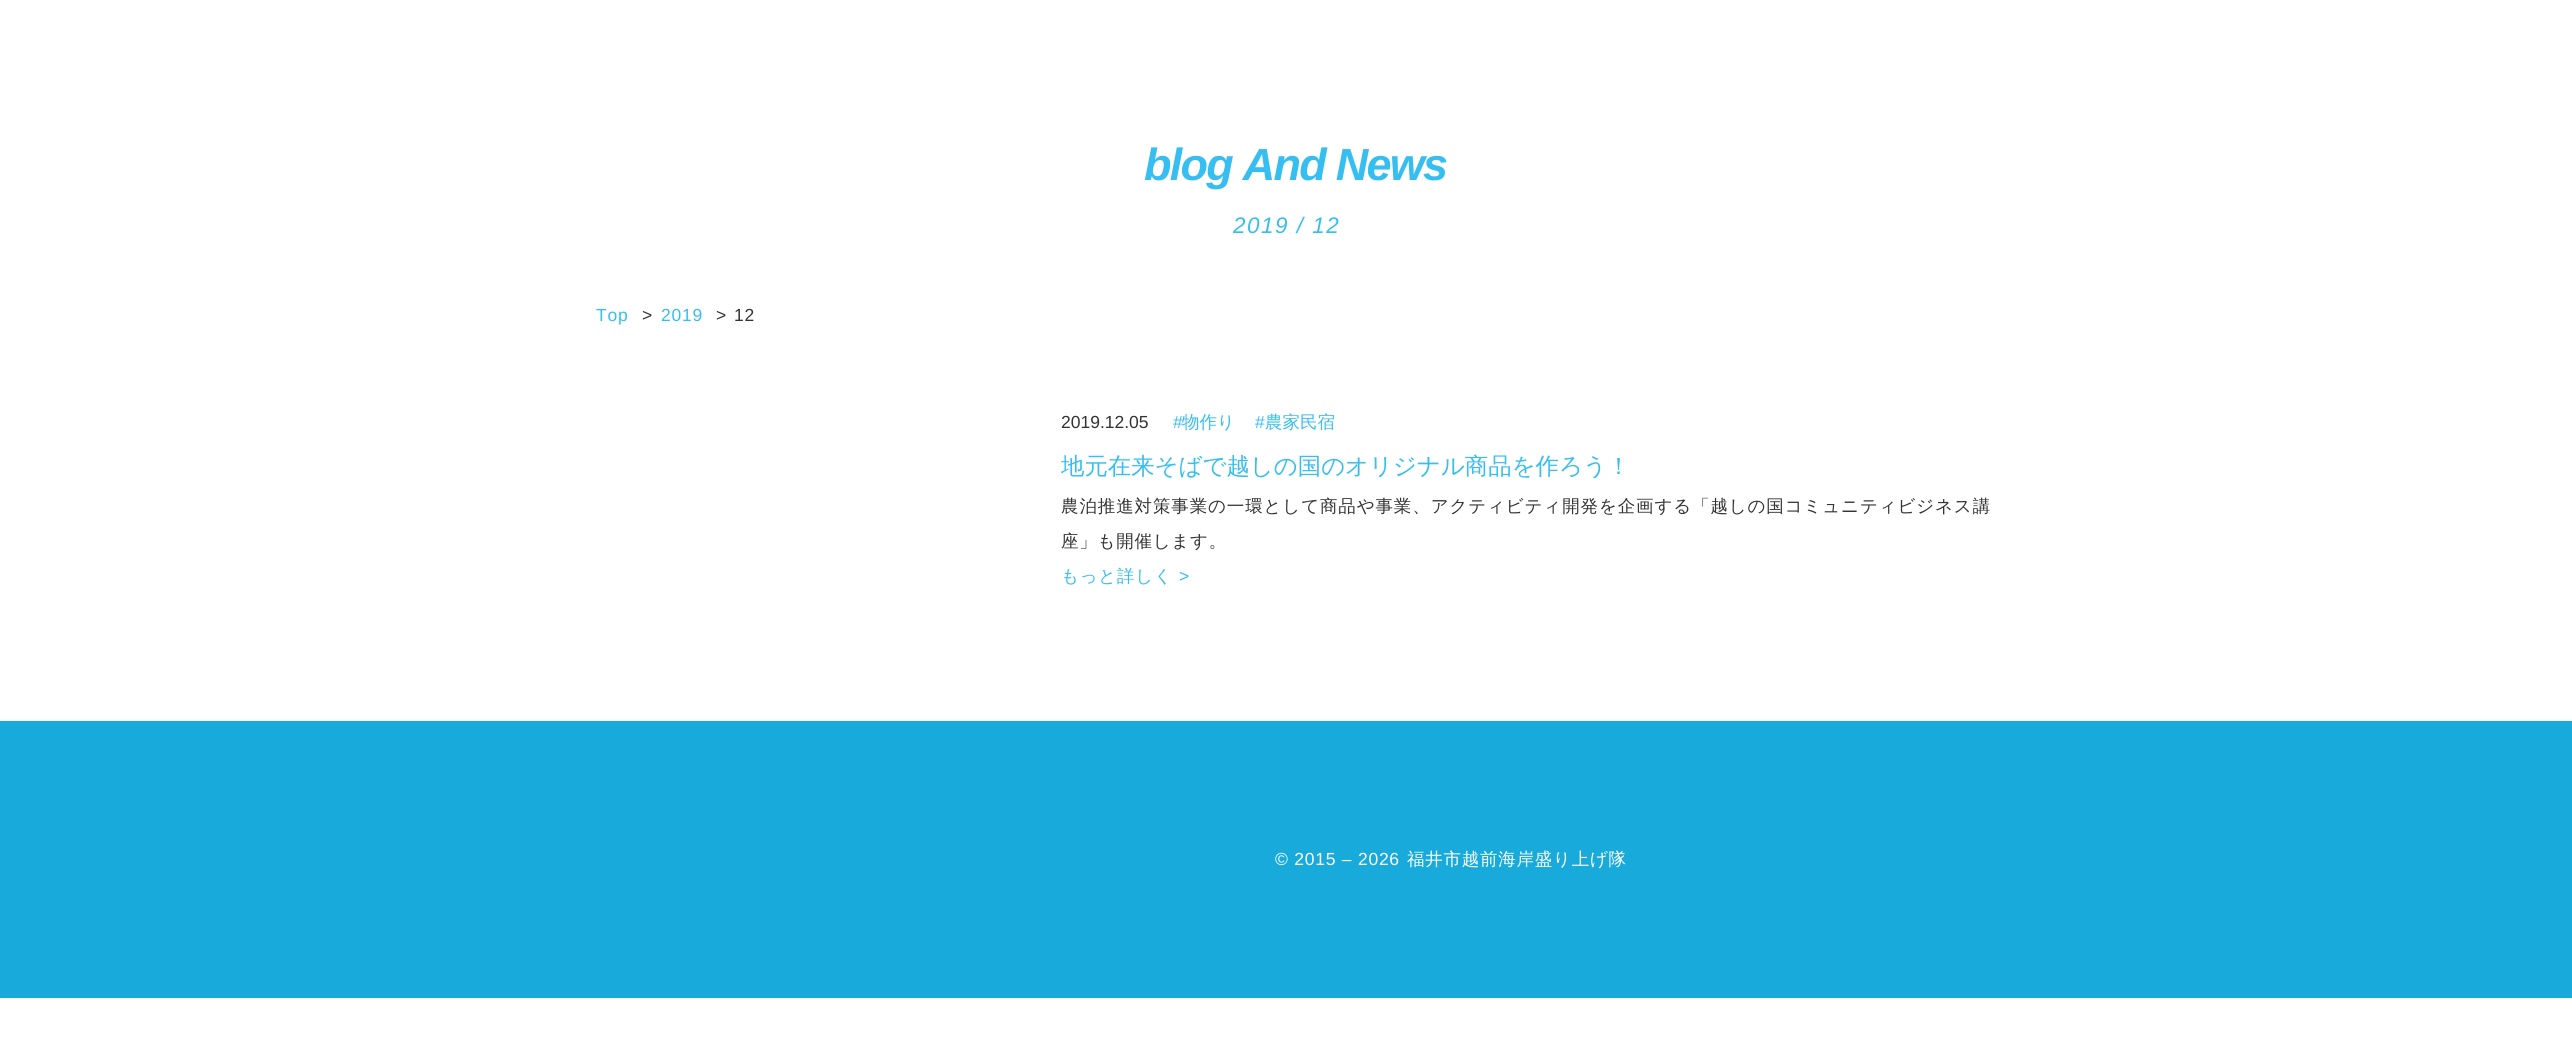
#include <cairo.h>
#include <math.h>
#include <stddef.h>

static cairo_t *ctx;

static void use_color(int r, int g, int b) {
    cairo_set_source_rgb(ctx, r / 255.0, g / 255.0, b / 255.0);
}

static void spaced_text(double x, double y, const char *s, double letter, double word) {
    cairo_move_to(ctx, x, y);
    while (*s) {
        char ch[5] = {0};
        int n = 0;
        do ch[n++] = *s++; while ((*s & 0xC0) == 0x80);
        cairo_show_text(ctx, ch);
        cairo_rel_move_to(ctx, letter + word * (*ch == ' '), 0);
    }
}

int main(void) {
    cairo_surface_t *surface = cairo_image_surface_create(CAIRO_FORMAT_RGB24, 2572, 1051);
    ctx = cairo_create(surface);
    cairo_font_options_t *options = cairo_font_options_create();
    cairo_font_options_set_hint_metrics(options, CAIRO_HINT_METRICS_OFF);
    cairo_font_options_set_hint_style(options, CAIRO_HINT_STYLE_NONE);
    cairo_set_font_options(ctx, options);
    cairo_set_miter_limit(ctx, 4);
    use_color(255, 255, 255);
    cairo_paint(ctx);
    cairo_select_font_face(ctx, "Liberation Sans", CAIRO_FONT_SLANT_ITALIC, CAIRO_FONT_WEIGHT_BOLD);
    cairo_set_font_size(ctx, 45);
    use_color(55, 190, 240);
    spaced_text(1144, 180, "blog And News", -1.75, 0);
    cairo_select_font_face(ctx, "Liberation Sans", CAIRO_FONT_SLANT_ITALIC, CAIRO_FONT_WEIGHT_NORMAL);
    cairo_set_font_size(ctx, 22.5);
    spaced_text(1233, 233, "2019 / 12", 1.5, 0);
    cairo_select_font_face(ctx, "Liberation Sans", CAIRO_FONT_SLANT_NORMAL, CAIRO_FONT_WEIGHT_NORMAL);
    cairo_set_font_size(ctx, 17.5);
    spaced_text(596, 321, "Top", 0.75, 0);
    use_color(51, 51, 51);
    spaced_text(642, 321, ">", 0.75, 0);
    use_color(55, 190, 240);
    spaced_text(661, 321, "2019", 0.75, 0);
    use_color(51, 51, 51);
    spaced_text(716, 321, ">", 0.75, 0);
    spaced_text(734, 321, "12", 0.75, 0);
    cairo_move_to(ctx, 1061, 428);
    cairo_show_text(ctx, "2019.12.05");
    use_color(55, 190, 240);
    cairo_move_to(ctx, 1173, 428);
    cairo_show_text(ctx, "#");
    cairo_select_font_face(ctx, "WenQuanYi Zen Hei Medium", CAIRO_FONT_SLANT_NORMAL, CAIRO_FONT_WEIGHT_NORMAL);
    cairo_move_to(ctx, 1182, 428);
    cairo_show_text(ctx, "物作り");
    cairo_select_font_face(ctx, "Liberation Sans", CAIRO_FONT_SLANT_NORMAL, CAIRO_FONT_WEIGHT_NORMAL);
    cairo_move_to(ctx, 1255, 428);
    cairo_show_text(ctx, "#");
    cairo_select_font_face(ctx, "WenQuanYi Zen Hei Medium", CAIRO_FONT_SLANT_NORMAL, CAIRO_FONT_WEIGHT_NORMAL);
    cairo_move_to(ctx, 1265, 428);
    cairo_show_text(ctx, "農家民宿");
    cairo_set_font_size(ctx, 23.4);
    cairo_move_to(ctx, 1061, 474);
    cairo_show_text(ctx, "地元在来そばで越しの国のオリジナル商品を作ろう！");
    cairo_set_font_size(ctx, 17.5);
    use_color(51, 51, 51);
    spaced_text(1061, 512, "農泊推進対策事業の一環として商品や事業、アクティビティ開発を企画する「越しの国コミュニティビジネス講", 0.88, 0);
    spaced_text(1061, 547, "座」も開催します。", 0.75, 0);
    use_color(55, 190, 240);
    spaced_text(1061, 582, "もっと詳しく", 0.75, 0);
    cairo_select_font_face(ctx, "Liberation Sans", CAIRO_FONT_SLANT_NORMAL, CAIRO_FONT_WEIGHT_NORMAL);
    spaced_text(1179, 582, ">", 0.75, 0);
    use_color(24, 170, 218);
    cairo_rectangle(ctx, 0, 721, 2572, 277);
    cairo_fill(ctx);
    use_color(255, 255, 255);
    spaced_text(1275, 865, "© 2015 – 2026", 0.75, 0);
    cairo_select_font_face(ctx, "WenQuanYi Zen Hei Medium", CAIRO_FONT_SLANT_NORMAL, CAIRO_FONT_WEIGHT_NORMAL);
    spaced_text(1407, 865, "福井市越前海岸盛り上げ隊", 0.75, 0);
    cairo_surface_write_to_png(surface, "result.png");
    cairo_font_options_destroy(options);
    cairo_destroy(ctx);
    cairo_surface_destroy(surface);
    return 0;
}
